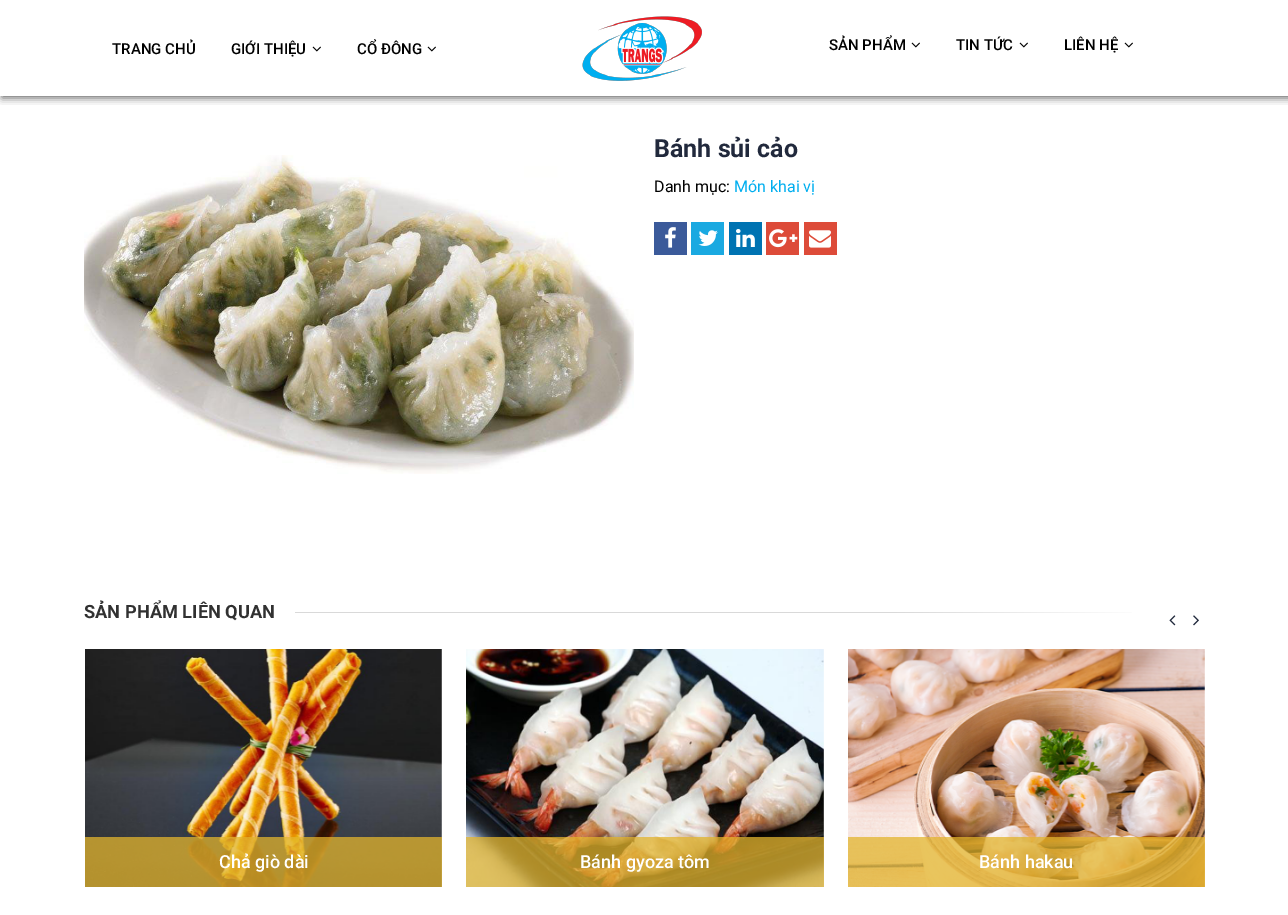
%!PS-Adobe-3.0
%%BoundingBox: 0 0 1288 915
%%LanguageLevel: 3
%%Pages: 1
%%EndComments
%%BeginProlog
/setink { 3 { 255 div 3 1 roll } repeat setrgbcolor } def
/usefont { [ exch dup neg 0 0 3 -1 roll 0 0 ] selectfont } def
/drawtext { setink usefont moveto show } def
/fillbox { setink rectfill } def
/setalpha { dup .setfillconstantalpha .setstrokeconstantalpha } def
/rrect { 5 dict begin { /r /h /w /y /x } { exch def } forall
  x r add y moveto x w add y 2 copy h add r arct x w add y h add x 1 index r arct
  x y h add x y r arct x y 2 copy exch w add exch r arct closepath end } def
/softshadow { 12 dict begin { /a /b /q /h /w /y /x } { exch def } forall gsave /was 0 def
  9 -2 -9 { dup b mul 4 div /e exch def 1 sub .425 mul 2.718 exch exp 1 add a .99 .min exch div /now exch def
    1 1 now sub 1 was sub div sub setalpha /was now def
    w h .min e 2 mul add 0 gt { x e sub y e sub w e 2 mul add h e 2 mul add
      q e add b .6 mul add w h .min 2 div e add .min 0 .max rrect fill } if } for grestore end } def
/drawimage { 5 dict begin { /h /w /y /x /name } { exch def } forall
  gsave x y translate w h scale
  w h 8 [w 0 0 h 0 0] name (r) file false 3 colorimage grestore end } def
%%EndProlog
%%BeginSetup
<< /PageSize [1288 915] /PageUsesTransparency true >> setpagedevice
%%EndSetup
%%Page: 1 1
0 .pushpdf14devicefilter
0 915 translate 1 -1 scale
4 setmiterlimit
0 0 1288 915 255 255 255 fillbox
gsave
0 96 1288 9 rectclip
0 0 0 setink
2 2 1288 96 0 4 0.6 softshadow
grestore
(TRANG CHỦ) 112 54 /Roboto-Medium 15 0 0 0 drawtext
(GIỚI THIỆU) 231 54 /Roboto-Medium 15 0 0 0 drawtext
(assets/img1.rgb) 312 46 9 6 drawimage
(CỔ ĐÔNG) 357 54 /Roboto-Medium 15 0 0 0 drawtext
(assets/img1.rgb) 427 46 9 6 drawimage
(assets/img2.rgb) 582 16 120 65 drawimage
(SẢN PHẨM) 829 50 /Roboto-Medium 15 0 0 0 drawtext
(assets/img1.rgb) 911 42 9 6 drawimage
(TIN TỨC) 956 50 /Roboto-Medium 15 0 0 0 drawtext
(assets/img1.rgb) 1019 42 9 6 drawimage
(LIÊN HỆ) 1064 50 /Roboto-Medium 15 0 0 0 drawtext
(assets/img1.rgb) 1124 42 9 6 drawimage
(assets/img3.rgb) 84 155 550 319 drawimage
(Bánh sủi cảo) 654 157 /Roboto-Bold 25 33 41 60 drawtext
(Danh mục:) 654 192 /Roboto-Regular 16 0 0 0 drawtext
(Món khai vị) 734 192 /Roboto-Regular 16 0 174 239 drawtext
654 222 33 33 59 90 154 fillbox
(assets/img4.rgb) 665 227 11 21 drawimage
691 222 33 33 26 169 225 fillbox
(assets/img5.rgb) 698 230 20 16 drawimage
729 222 33 33 0 115 178 fillbox
(assets/img6.rgb) 736 229 19 18 drawimage
766 222 33 33 221 75 57 fillbox
(assets/img7.rgb) 769 229 29 19 drawimage
804 222 33 33 221 75 57 fillbox
(assets/img8.rgb) 809 230 22 18 drawimage
(SẢN PHẨM LIÊN QUAN) 84 618 /Roboto-Bold 18.25 49 49 49 drawtext
gsave 295 612 moveto 1132 612 lineto 1132 613 lineto 295 613 lineto closepath clip newpath
<< /ShadingType 2 /ColorSpace /DeviceRGB /Coords [295 613 1149 613] /Extend [true true] /Function << /FunctionType 3 /Domain [0 1] /Functions [<< /FunctionType 2 /Domain [0 1] /C0 [0.851 0.851 0.851] /C1 [0.851 0.851 0.851] /N 1 >> << /FunctionType 2 /Domain [0 1] /C0 [0.851 0.851 0.851] /C1 [1 1 1] /N 1 >>] /Bounds [0.7] /Encode [0 1 0 1] >> >> shfill grestore
(assets/img9.rgb) 1169 615 7 11 drawimage
(assets/img10.rgb) 1193 615 6 11 drawimage
(assets/img11.rgb) 85 649 357 238 drawimage
0.75 setalpha
85 837 357 50 226 180 45 fillbox
1 setalpha
(Chả giò dài) 219 868 /Roboto-Medium 18 255 255 255 drawtext
(assets/img12.rgb) 466 649 358 238 drawimage
0.75 setalpha
466 837 358 50 226 180 45 fillbox
1 setalpha
(Bánh gyoza tôm) 580 868 /Roboto-Medium 18 255 255 255 drawtext
(assets/img13.rgb) 848 649 357 238 drawimage
0.75 setalpha
848 837 357 50 226 180 45 fillbox
1 setalpha
(Bánh hakau) 979 868 /Roboto-Medium 18 255 255 255 drawtext
.poppdf14devicefilter showpage
%%EOF
